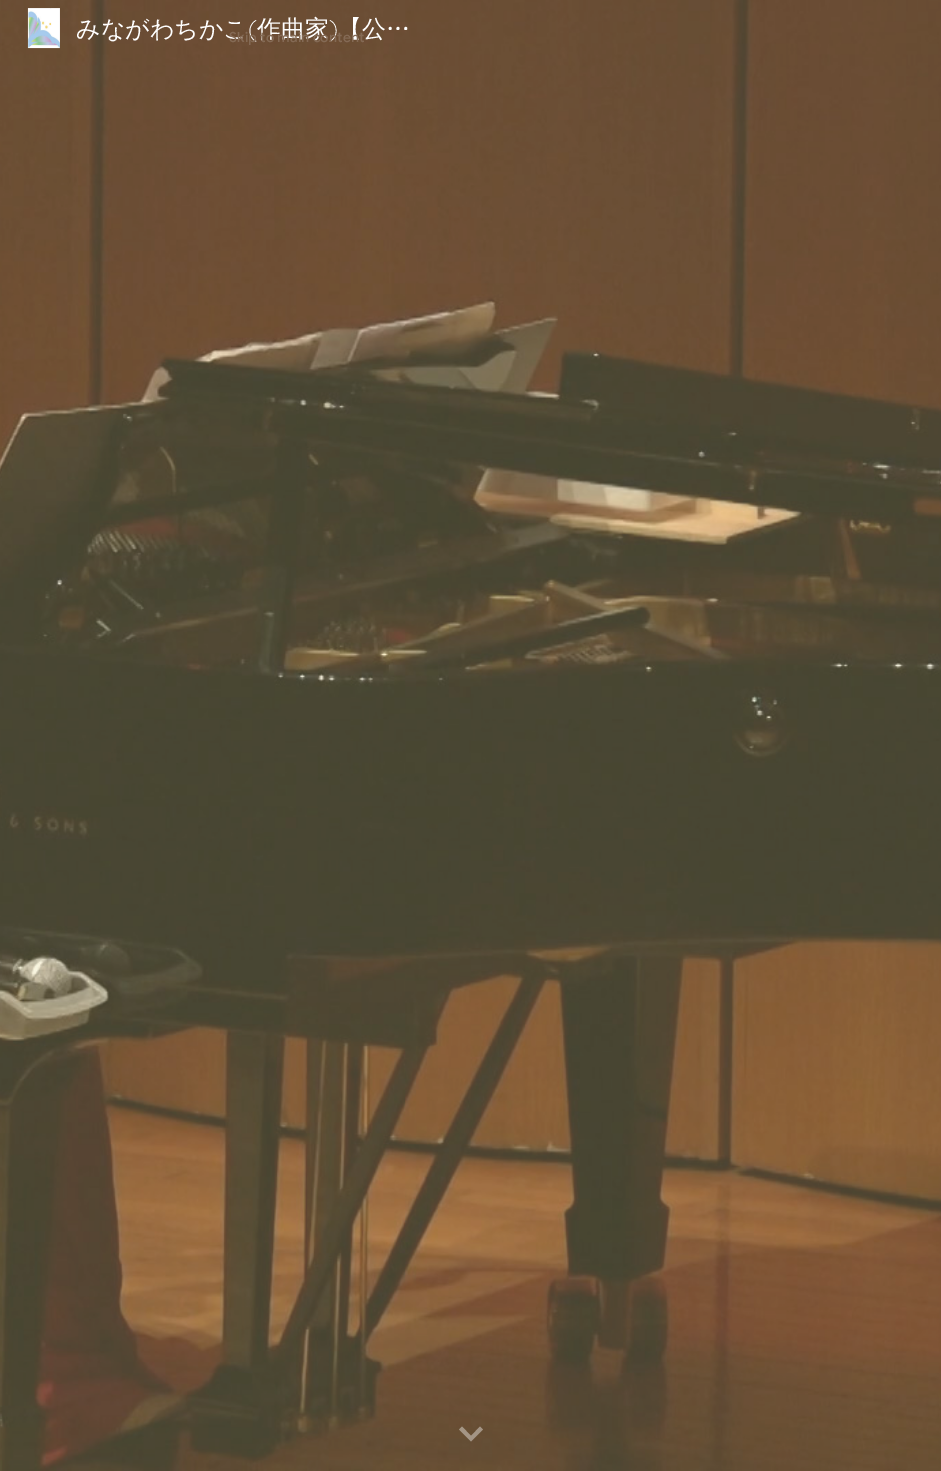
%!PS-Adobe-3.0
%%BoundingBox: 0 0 941 1471
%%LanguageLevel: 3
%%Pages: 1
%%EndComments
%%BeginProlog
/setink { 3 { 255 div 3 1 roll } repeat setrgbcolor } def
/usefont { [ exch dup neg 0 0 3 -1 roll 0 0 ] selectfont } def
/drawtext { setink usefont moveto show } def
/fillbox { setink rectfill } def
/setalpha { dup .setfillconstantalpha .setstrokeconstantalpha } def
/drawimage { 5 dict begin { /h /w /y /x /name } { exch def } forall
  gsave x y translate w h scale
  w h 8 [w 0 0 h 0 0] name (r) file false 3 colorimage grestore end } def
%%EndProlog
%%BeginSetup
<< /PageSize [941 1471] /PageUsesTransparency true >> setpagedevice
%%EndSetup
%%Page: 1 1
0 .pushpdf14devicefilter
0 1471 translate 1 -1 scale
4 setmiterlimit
0 0 941 1471 255 255 255 fillbox
(assets/img1.rgb) 0 0 941 1471 drawimage
0.4 setalpha
462 1426.5 moveto 471 1436 lineto 480 1426.5 lineto 483 1429.5 lineto 471 1441.5 lineto 459 1429.5 lineto closepath fill
1 setalpha
(assets/img2.rgb) 27 8 33 41 drawimage
(みながわちかこ) 76 37 /WenQuanYiZenHei-Medium 24 255 255 255 drawtext
(\() 248 37 /Quicksand-Light 24 255 255 255 drawtext
(作曲家) 257 37 /WenQuanYiZenHei-Medium 24 255 255 255 drawtext
(\)) 329 37 /Quicksand-Light 24 255 255 255 drawtext
(【公…) 338 37 /WenQuanYiZenHei-Medium 24 255 255 255 drawtext
/GoogleSans-Medium 14 usefont
132 106 85 setink
229 42 moveto 0.1 0 (Skip to main content) ashow
.poppdf14devicefilter showpage
%%EOF
